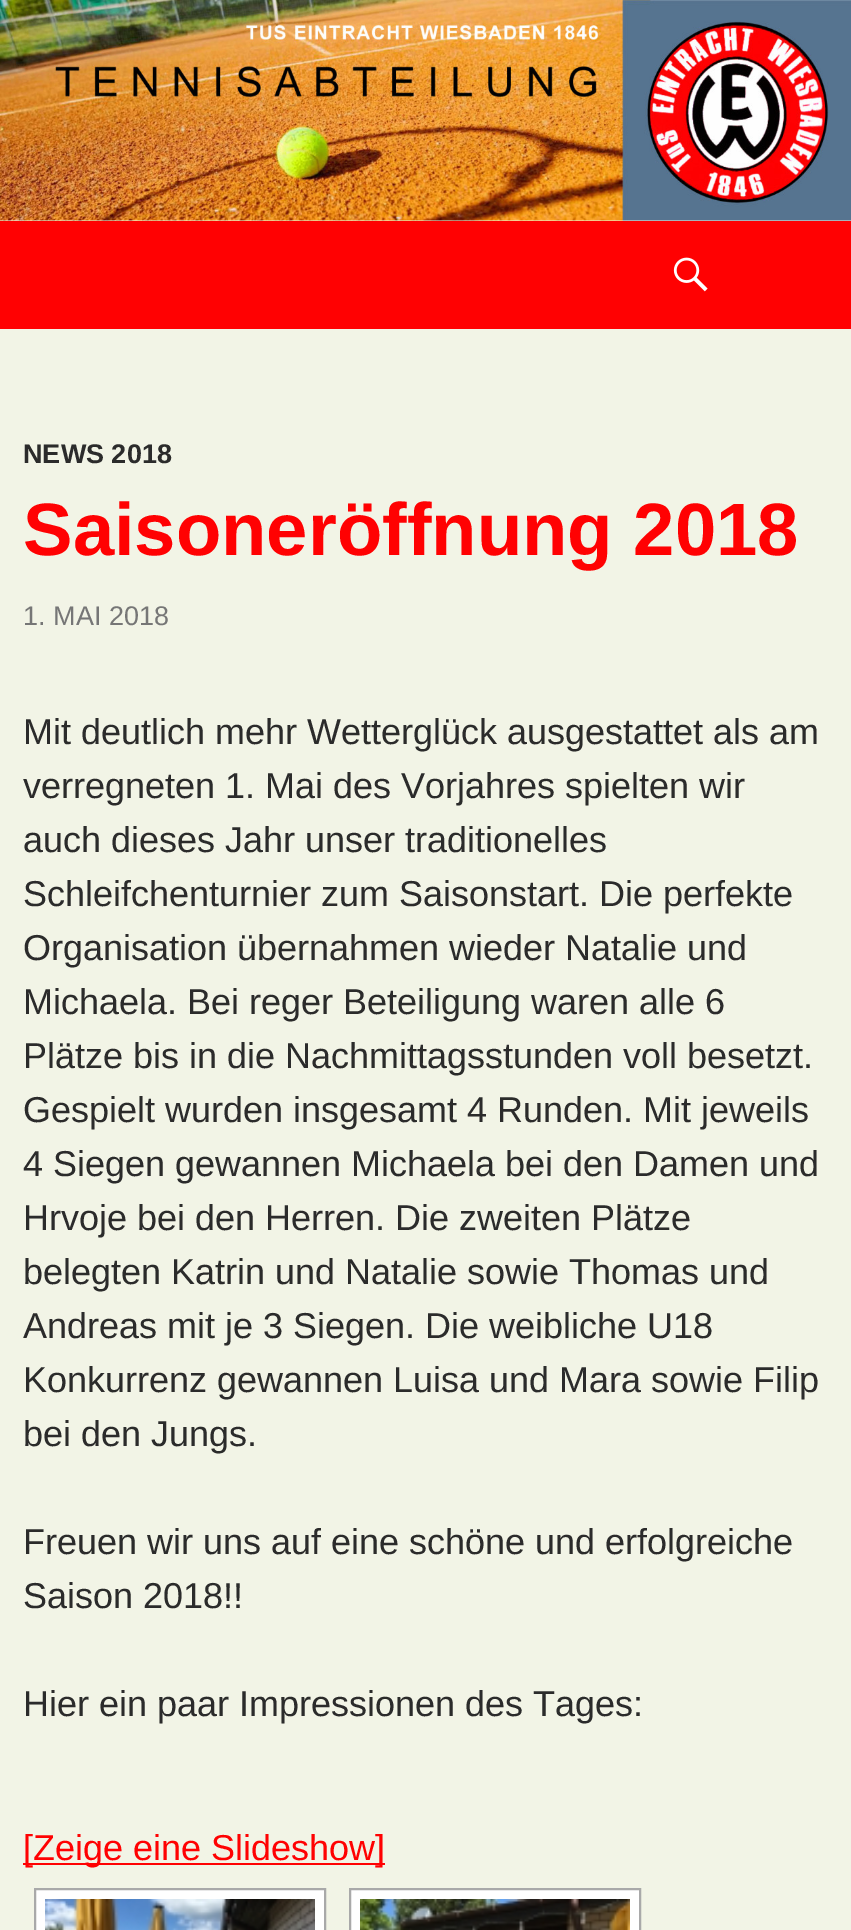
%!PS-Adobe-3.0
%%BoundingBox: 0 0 851 1930
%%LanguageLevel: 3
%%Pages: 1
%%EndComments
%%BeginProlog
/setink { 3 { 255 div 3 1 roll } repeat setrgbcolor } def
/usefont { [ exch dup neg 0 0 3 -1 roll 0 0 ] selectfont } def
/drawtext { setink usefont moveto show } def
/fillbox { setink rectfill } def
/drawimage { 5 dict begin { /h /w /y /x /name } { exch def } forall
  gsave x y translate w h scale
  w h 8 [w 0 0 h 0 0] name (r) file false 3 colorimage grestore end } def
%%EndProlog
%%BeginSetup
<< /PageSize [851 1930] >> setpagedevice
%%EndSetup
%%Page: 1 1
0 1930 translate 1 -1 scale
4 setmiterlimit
0 0 851 1930 242 244 230 fillbox
(assets/img1.rgb) 0 0 851 221 drawimage
0 221 851 108 255 1 2 fillbox
(assets/img2.rgb) 673 257 35 35 drawimage
(NEWS 2018) 23 463 /LiberationSans-Bold 27 43 43 43 drawtext
(Saisoneröffnung 2018) 23 555 /LiberationSans-Bold 74.25 255 1 2 drawtext
(1. MAI 2018) 23 625 /LiberationSans-Regular 27 118 118 118 drawtext
(Mit deutlich mehr Wetterglück ausgestattet als am) 23 744 /LiberationSans-Regular 36 43 43 43 drawtext
(verregneten 1. Mai des Vorjahres spielten wir) 23 798 /LiberationSans-Regular 36 43 43 43 drawtext
(auch dieses Jahr unser traditionelles) 23 852 /LiberationSans-Regular 36 43 43 43 drawtext
(Schleifchenturnier zum Saisonstart. Die perfekte) 23 906 /LiberationSans-Regular 36 43 43 43 drawtext
(Organisation übernahmen wieder Natalie und) 23 960 /LiberationSans-Regular 36 43 43 43 drawtext
(Michaela. Bei reger Beteiligung waren alle 6) 23 1014 /LiberationSans-Regular 36 43 43 43 drawtext
(Plätze bis in die Nachmittagsstunden voll besetzt.) 23 1068 /LiberationSans-Regular 36 43 43 43 drawtext
(Gespielt wurden insgesamt 4 Runden. Mit jeweils) 23 1122 /LiberationSans-Regular 36 43 43 43 drawtext
(4 Siegen gewannen Michaela bei den Damen und) 23 1176 /LiberationSans-Regular 36 43 43 43 drawtext
(Hrvoje bei den Herren. Die zweiten Plätze) 23 1230 /LiberationSans-Regular 36 43 43 43 drawtext
(belegten Katrin und Natalie sowie Thomas und) 23 1284 /LiberationSans-Regular 36 43 43 43 drawtext
(Andreas mit je 3 Siegen. Die weibliche U18) 23 1338 /LiberationSans-Regular 36 43 43 43 drawtext
(Konkurrenz gewannen Luisa und Mara sowie Filip) 23 1392 /LiberationSans-Regular 36 43 43 43 drawtext
(bei den Jungs.) 23 1446 /LiberationSans-Regular 36 43 43 43 drawtext
(Freuen wir uns auf eine schöne und erfolgreiche) 23 1554 /LiberationSans-Regular 36 43 43 43 drawtext
(Saison 2018!!) 23 1608 /LiberationSans-Regular 36 43 43 43 drawtext
(Hier ein paar Impressionen des Tages:) 23 1716 /LiberationSans-Regular 36 43 43 43 drawtext
23 1863 362 2 255 1 2 fillbox
([Zeige eine Slideshow]) 23 1860 /LiberationSans-Regular 36 255 1 2 drawtext
255 255 255 setink
35 1889 moveto 325 1889 lineto 325 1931 lineto 35 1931 lineto closepath gsave fill grestore
169 169 169 setink
2 setlinewidth
stroke
(assets/img3.rgb) 45 1899 270 31 drawimage
255 255 255 setink
350 1889 moveto 640 1889 lineto 640 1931 lineto 350 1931 lineto closepath gsave fill grestore
169 169 169 setink
stroke
(assets/img4.rgb) 360 1899 270 31 drawimage
showpage
%%EOF
